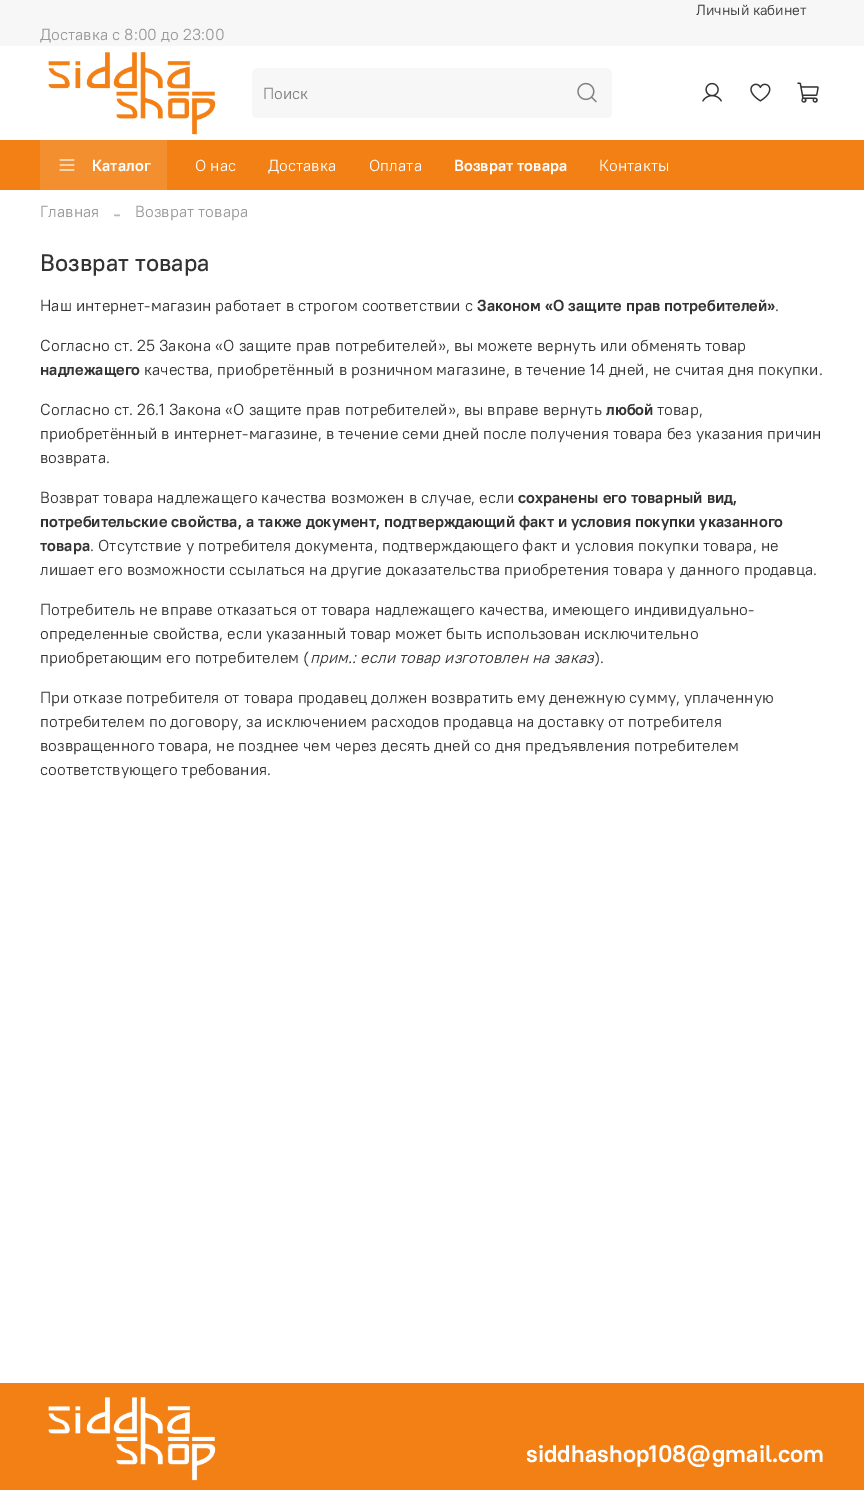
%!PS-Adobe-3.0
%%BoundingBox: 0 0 864 1490
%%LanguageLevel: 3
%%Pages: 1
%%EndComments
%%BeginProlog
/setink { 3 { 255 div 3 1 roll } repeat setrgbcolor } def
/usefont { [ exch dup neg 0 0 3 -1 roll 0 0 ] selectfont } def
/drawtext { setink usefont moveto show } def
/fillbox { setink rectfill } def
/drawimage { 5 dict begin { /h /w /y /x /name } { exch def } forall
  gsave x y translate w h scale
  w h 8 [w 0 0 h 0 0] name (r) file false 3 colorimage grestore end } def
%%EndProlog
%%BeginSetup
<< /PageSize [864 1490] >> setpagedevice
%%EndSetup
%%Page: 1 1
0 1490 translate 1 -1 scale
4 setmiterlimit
0 0 864 1490 255 255 255 fillbox
0 0 864 46 247 247 247 fillbox
(Личный кабинет) 696 15 /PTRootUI-Regular 14.5 51 51 51 drawtext
(Доставка с 8:00 до 23:00) 40 40 /PTRootUI-Regular 16 153 153 153 drawtext
(assets/img1.rgb) 48 52 168 83 drawimage
247 247 247 setink
258 68 moveto 562 68 lineto 562 118 lineto 258 118 lineto 254.5 118 252 115.5 252 112 curveto 252 74 lineto 252 70.5 254.5 68 258 68 curveto closepath fill
(Поиск) 263 99 /PTRootUI-Regular 16 128 128 128 drawtext
247 247 247 setink
562 68 moveto 606 68 lineto 609.5 68 612 70.5 612 74 curveto 612 112 lineto 612 115.5 609.5 118 606 118 curveto 562 118 lineto closepath fill
(assets/img2.rgb) 577 82 20 21 drawimage
(assets/img3.rgb) 702 82 20 20 drawimage
(assets/img4.rgb) 750 83 21 19 drawimage
(assets/img5.rgb) 797 82 22 21 drawimage
0 140 864 50 243 128 21 fillbox
40 140 127 50 244 143 48 fillbox
(assets/img6.rgb) 59 159 16 12 drawimage
(Каталог) 92 171 /PTRootUI-Bold 16 255 255 255 drawtext
(О нас) 195 171 /PTRootUI-Regular 16 255 255 255 drawtext
(Доставка) 268 171 /PTRootUI-Regular 16 255 255 255 drawtext
(Оплата) 369 171 /PTRootUI-Regular 16 255 255 255 drawtext
(Возврат товара) 454 171 /PTRootUI-Bold 16 255 255 255 drawtext
(Контакты) 599 171 /PTRootUI-Regular 16 255 255 255 drawtext
(Главная) 40 217 /PTRootUI-Regular 16 153 153 153 drawtext
(-) 113 221 /LiberationSerif-Regular 24 184 184 184 drawtext
(Возврат товара) 135 217 /PTRootUI-Regular 16 153 153 153 drawtext
(Возврат товара) 40 271 /PTRootUI-Medium 24 51 51 51 drawtext
(Наш интернет-магазин работает в строгом соответствии с) 40 311 /PTRootUI-Regular 16 51 51 51 drawtext
(Законом «О защите прав потребителей») 477 311 /PTRootUI-Bold 16 51 51 51 drawtext
(.) 775 311 /PTRootUI-Regular 16 51 51 51 drawtext
(Согласно ст. 25 Закона «О защите прав потребителей», вы можете вернуть или обменять товар) 40 351 /PTRootUI-Regular 16 51 51 51 drawtext
(надлежащего) 40 375 /PTRootUI-Bold 16 51 51 51 drawtext
(качества, приобретённый в розничном магазине, в течение 14 дней, не считая дня покупки.) 144 375 /PTRootUI-Regular 16 51 51 51 drawtext
(Согласно ст. 26.1 Закона «О защите прав потребителей», вы вправе вернуть) 40 415 /PTRootUI-Regular 16 51 51 51 drawtext
(любой) 606 415 /PTRootUI-Bold 16 51 51 51 drawtext
(товар,) 657 415 /PTRootUI-Regular 16 51 51 51 drawtext
(приобретённый в интернет-магазине, в течение семи дней после получения товара без указания причин) 40 439 /PTRootUI-Regular 16 51 51 51 drawtext
(возврата.) 40 463 /PTRootUI-Regular 16 51 51 51 drawtext
(Возврат товара надлежащего качества возможен в случае, если) 40 503 /PTRootUI-Regular 16 51 51 51 drawtext
(сохранены его товарный вид,) 518 503 /PTRootUI-Bold 16 51 51 51 drawtext
(потребительские свойства, а также документ, подтверждающий факт и условия покупки указанного) 40 527 /PTRootUI-Bold 16 51 51 51 drawtext
(товара) 40 551 /PTRootUI-Bold 16 51 51 51 drawtext
(. Отсутствие у потребителя документа, подтверждающего факт и условия покупки товара, не) 90 551 /PTRootUI-Regular 16 51 51 51 drawtext
(лишает его возможности ссылаться на другие доказательства приобретения товара у данного продавца.) 40 575 /PTRootUI-Regular 16 51 51 51 drawtext
(Потребитель не вправе отказаться от товара надлежащего качества, имеющего индивидуально-) 40 615 /PTRootUI-Regular 16 51 51 51 drawtext
(определенные свойства, если указанный товар может быть использован исключительно) 40 639 /PTRootUI-Regular 16 51 51 51 drawtext
(приобретающим его потребителем \() 40 663 /PTRootUI-Regular 16 51 51 51 drawtext
(прим.: если товар изготовлен на заказ) 310 663 /PTRootUI-Italic 16 51 51 51 drawtext
(\).) 594 663 /PTRootUI-Regular 16 51 51 51 drawtext
(При отказе потребителя от товара продавец должен возвратить ему денежную сумму, уплаченную) 40 703 /PTRootUI-Regular 16 51 51 51 drawtext
(потребителем по договору, за исключением расходов продавца на доставку от потребителя) 40 727 /PTRootUI-Regular 16 51 51 51 drawtext
(возвращенного товара, не позднее чем через десять дней со дня предъявления потребителем) 40 751 /PTRootUI-Regular 16 51 51 51 drawtext
(соответствующего требования.) 40 775 /PTRootUI-Regular 16 51 51 51 drawtext
0 1383 864 107 243 128 21 fillbox
(assets/img7.rgb) 48 1397 168 84 drawimage
(siddhashop108@gmail.com) 526 1462 /PTRootUI-Bold 24 255 255 255 drawtext
showpage
%%EOF
